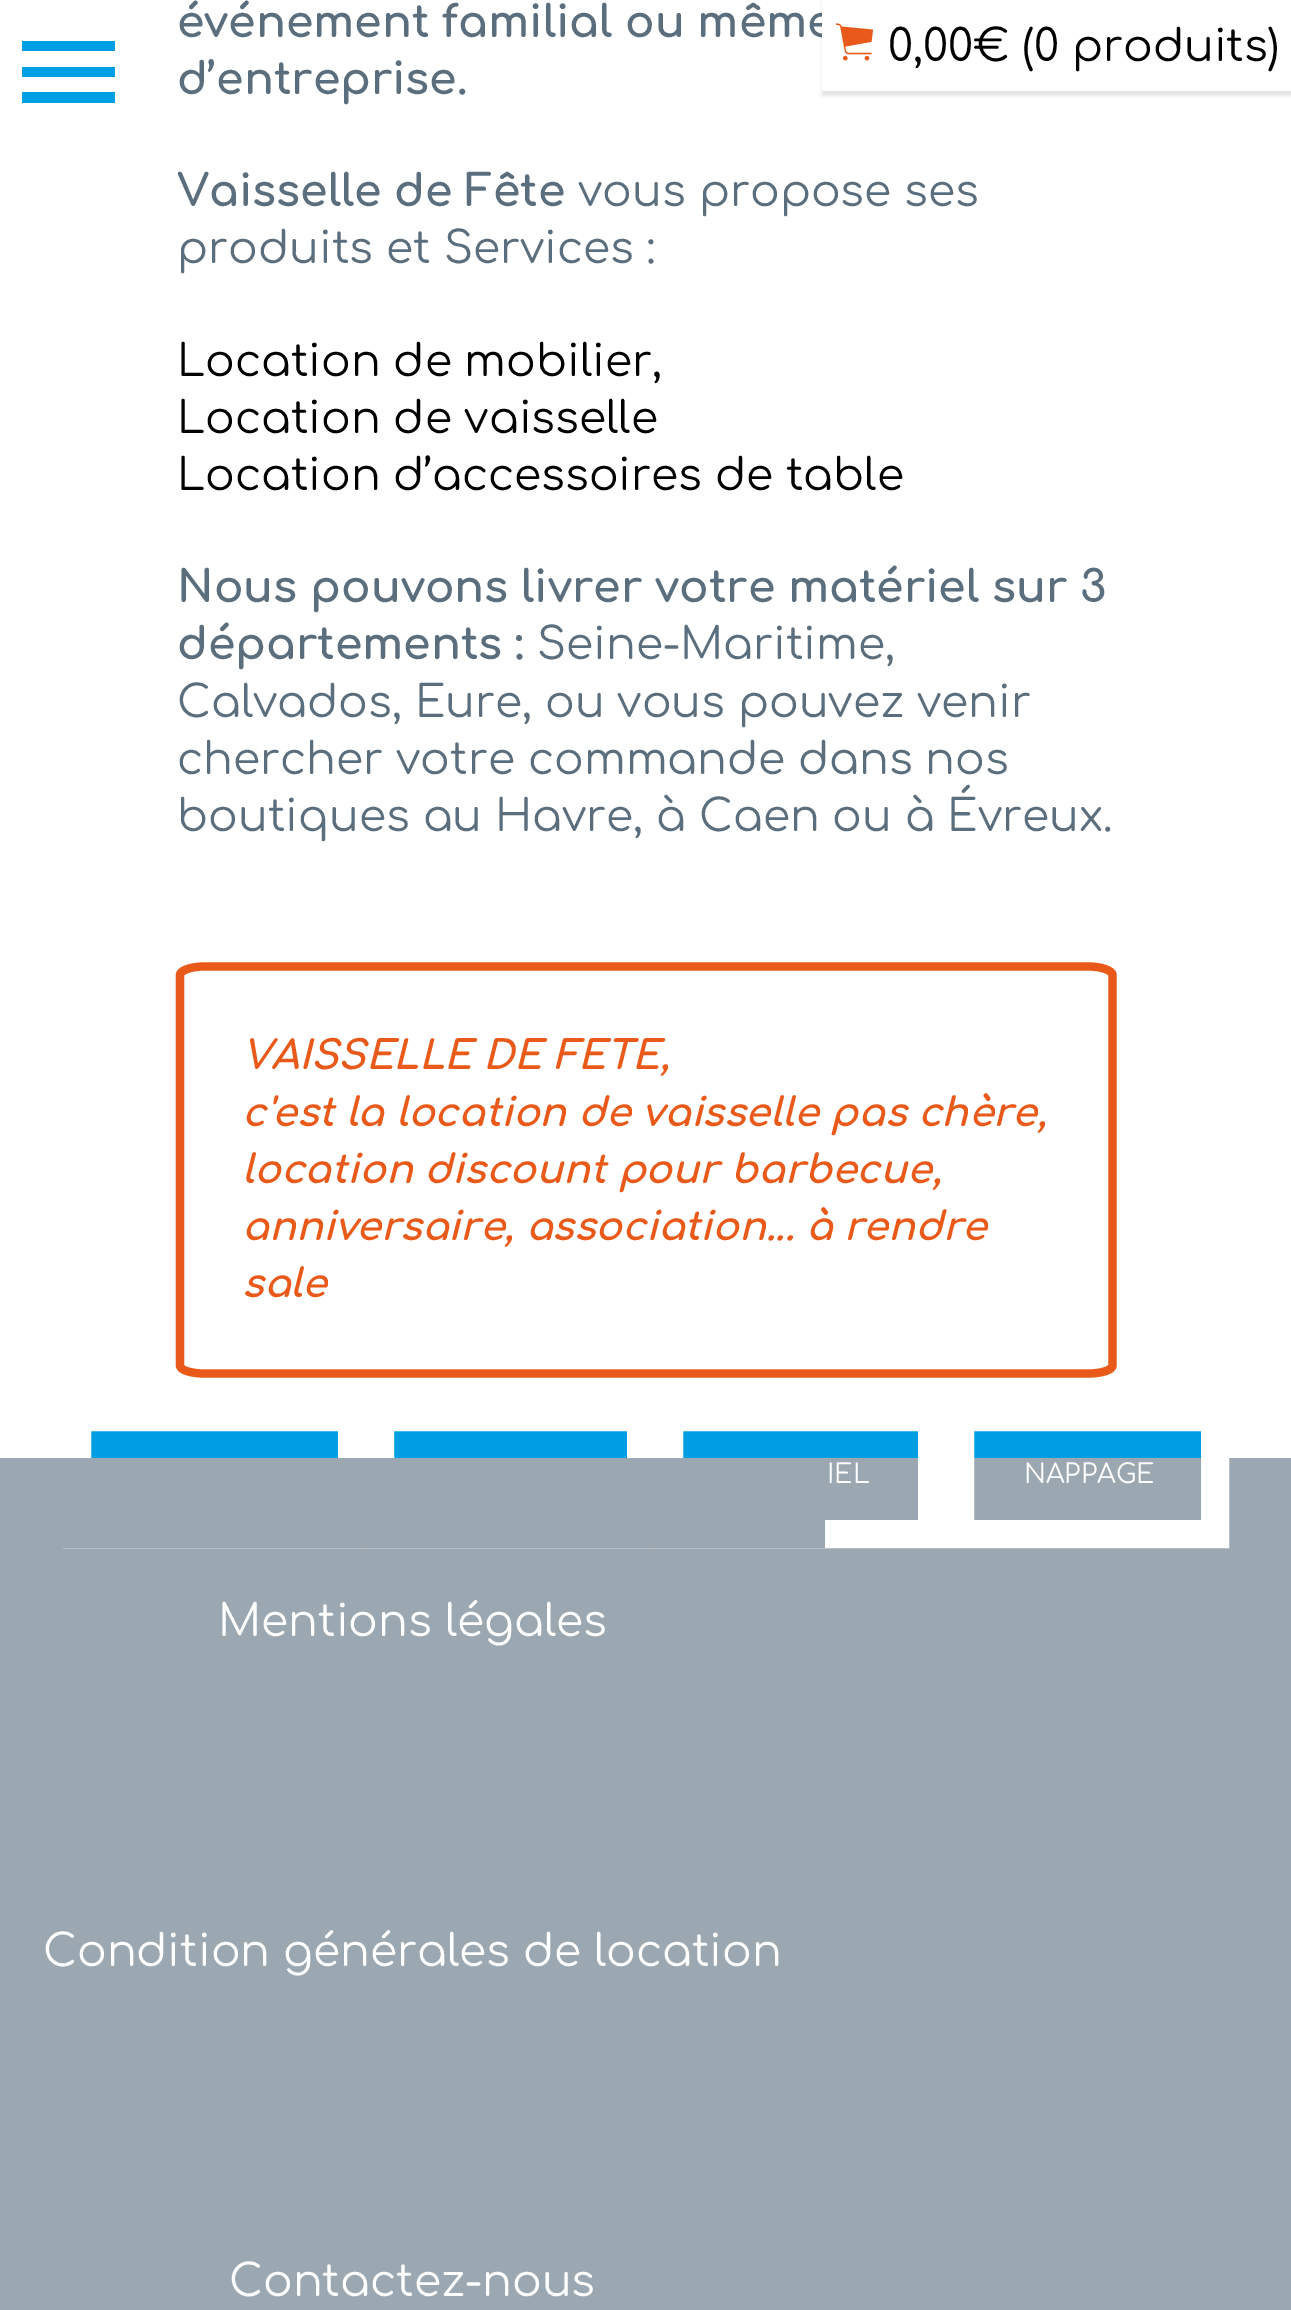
%!PS-Adobe-3.0
%%BoundingBox: 0 0 1291 2310
%%LanguageLevel: 3
%%Pages: 1
%%EndComments
%%BeginProlog
/setink { 3 { 255 div 3 1 roll } repeat setrgbcolor } def
/usefont { [ exch dup neg 0 0 3 -1 roll 0 0 ] selectfont } def
/drawtext { setink usefont moveto show } def
/fillbox { setink rectfill } def
/setalpha { dup .setfillconstantalpha .setstrokeconstantalpha } def
/rrect { 5 dict begin { /r /h /w /y /x } { exch def } forall
  x r add y moveto x w add y 2 copy h add r arct x w add y h add x 1 index r arct
  x y h add x y r arct x y 2 copy exch w add exch r arct closepath end } def
/softshadow { 12 dict begin { /a /b /q /h /w /y /x } { exch def } forall gsave /was 0 def
  9 -2 -9 { dup b mul 4 div /e exch def 1 sub .425 mul 2.718 exch exp 1 add a .99 .min exch div /now exch def
    1 1 now sub 1 was sub div sub setalpha /was now def
    w h .min e 2 mul add 0 gt { x e sub y e sub w e 2 mul add h e 2 mul add
      q e add b .6 mul add w h .min 2 div e add .min 0 .max rrect fill } if } for grestore end } def
/drawimage { 5 dict begin { /h /w /y /x /name } { exch def } forall
  gsave x y translate w h scale
  w h 8 [w 0 0 h 0 0] name (r) file false 3 colorimage grestore end } def
%%EndProlog
%%BeginSetup
<< /PageSize [1291 2310] /PageUsesTransparency true >> setpagedevice
%%EndSetup
%%Page: 1 1
0 .pushpdf14devicefilter
0 2310 translate 1 -1 scale
4 setmiterlimit
0 0 1291 2310 255 255 255 fillbox
(événement familial ou même) 177 37 /Comfortaa-Bold 44 90 110 125 drawtext
(d’entreprise.) 177 94 /Comfortaa-Bold 44 90 110 125 drawtext
(Vaisselle de Fête) 177 206 /Comfortaa-Bold 44 90 110 125 drawtext
(vous propose ses) 578 206 /Comfortaa-Regular 44 90 110 125 drawtext
(produits et Services :) 177 263 /Comfortaa-Regular 44 90 110 125 drawtext
(Location de mobilier,) 177 376 /Comfortaa-Regular 44 0 0 0 drawtext
(Location de vaisselle) 177 433 /Comfortaa-Regular 44 0 0 0 drawtext
(Location d’accessoires de table) 177 490 /Comfortaa-Regular 44 0 0 0 drawtext
(Nous pouvons livrer votre matériel sur 3) 177 602 /Comfortaa-Bold 44 90 110 125 drawtext
(départements :) 177 659 /Comfortaa-Bold 44 90 110 125 drawtext
(Seine-Maritime,) 537 659 /Comfortaa-Regular 44 90 110 125 drawtext
(Calvados, Eure, ou vous pouvez venir) 177 717 /Comfortaa-Regular 44 90 110 125 drawtext
(chercher votre commande dans nos) 177 774 /Comfortaa-Regular 44 90 110 125 drawtext
(boutiques au Havre, à Caen ou à Évreux.) 177 831 /Comfortaa-Regular 44 90 110 125 drawtext
233 90 26 setink
8.2 setlinewidth
204 966.5 moveto 1088.5 966.5 lineto 1101.5 966.5 1112.5 970.5 1112.5 975 curveto 1112.5 1365.5 lineto 1112.5 1370 1101.5 1373.5 1088.5 1373.5 curveto 204 1373.5 lineto 191 1373.5 180 1370 180 1365.5 curveto 180 975 lineto 180 970.5 191 966.5 204 966.5 curveto closepath stroke
(VAISSELLE DE FETE,) 242 1069 /Comfortaa-BoldItalic 39.6 233 90 26 drawtext
(c'est la location de vaisselle pas chère,) 242 1126 /Comfortaa-BoldItalic 39.6 233 90 26 drawtext
(location discount pour barbecue,) 242 1183 /Comfortaa-BoldItalic 39.6 233 90 26 drawtext
(anniversaire, association... à rendre) 242 1240 /Comfortaa-BoldItalic 39.6 233 90 26 drawtext
(sale) 242 1297 /Comfortaa-BoldItalic 39.6 233 90 26 drawtext
91 1431 247 27 0 158 226 fillbox
0 1458 1291 852 156 168 177 fillbox
255 255 255 setink
28 setlinewidth
77 1417 275 117 rectstroke
394 1431 233 27 0 158 226 fillbox
255 255 255 setink
380 1417 261 117 rectstroke
683 1431 235 27 0 158 226 fillbox
255 255 255 setink
669 1417 263 117 rectstroke
(IEL) 827 1483 /Comfortaa-Regular 26.5 255 255 255 drawtext
974 1431 227 27 0 158 226 fillbox
255 255 255 setink
960 1417 255 117 rectstroke
(NAPPAGE) 1024 1483 /Comfortaa-Regular 26.5 255 255 255 drawtext
63 1458 762 90 156 168 177 fillbox
(Mentions légales) 218 1636 /Comfortaa-Regular 44 255 255 255 drawtext
(Condition générales de location) 43 1966 /Comfortaa-Regular 44 255 255 255 drawtext
(Contactez-nous) 229 2296 /Comfortaa-Regular 44 255 255 255 drawtext
0 158 226 setink
22 103 moveto 22 92 lineto 115 92 lineto 115 103 lineto closepath 22 77 moveto 22 67 lineto 115 67 lineto 115 77 lineto closepath 22 41 moveto 115 41 lineto 115 51 lineto 22 51 lineto closepath fill
0 0 0 setink
822 0 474 96 0 1.5 0.1 softshadow
822 0 469 91 255 255 255 fillbox
(assets/img1.rgb) 836 23 38 38 drawimage
(0,00€ \(0 produits\)) 888 61 /Comfortaa-Regular 44 0 0 0 drawtext
.poppdf14devicefilter showpage
%%EOF
